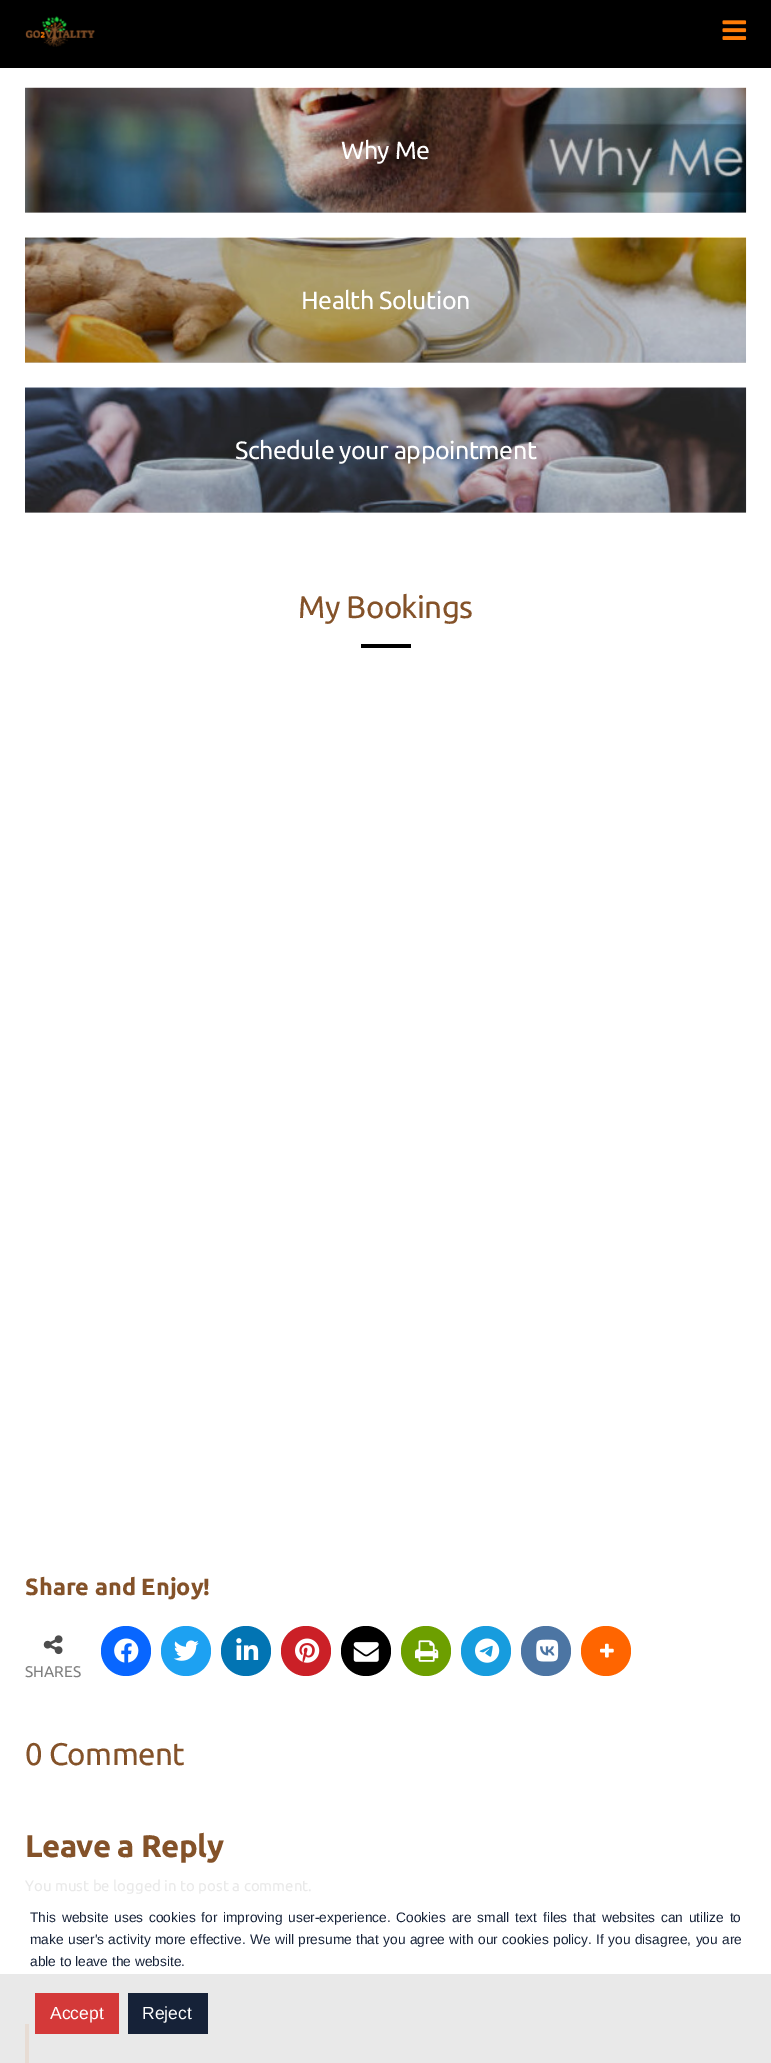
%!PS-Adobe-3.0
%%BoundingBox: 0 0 771 2063
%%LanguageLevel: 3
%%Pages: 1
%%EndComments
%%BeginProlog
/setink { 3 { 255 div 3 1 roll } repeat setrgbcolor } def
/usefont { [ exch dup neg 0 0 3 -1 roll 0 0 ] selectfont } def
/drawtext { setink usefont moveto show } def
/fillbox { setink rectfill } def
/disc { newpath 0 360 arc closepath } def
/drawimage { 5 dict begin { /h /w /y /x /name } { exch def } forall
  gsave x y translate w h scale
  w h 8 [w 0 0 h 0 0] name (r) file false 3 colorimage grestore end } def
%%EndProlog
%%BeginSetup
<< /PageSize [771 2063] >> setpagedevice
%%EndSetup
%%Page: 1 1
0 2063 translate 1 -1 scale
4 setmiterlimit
0 0 771 2063 255 255 255 fillbox
25 512 721 1 204 204 204 fillbox
25 362 721 1 204 204 204 fillbox
25 212 721 1 204 204 204 fillbox
0 0 771 68 0 0 0 fillbox
(assets/img1.rgb) 25 16 70 31 drawimage
(assets/img2.rgb) 722 20 25 20 drawimage
(assets/img3.rgb) 25 87 722 126 drawimage
/Ubuntu-Regular 25 usefont
255 255 255 setink
341 159 moveto -0.5 0 (Why Me) ashow
(assets/img4.rgb) 25 237 722 126 drawimage
301 309 moveto -0.5 0 (Health Solution) ashow
(assets/img5.rgb) 25 387 722 126 drawimage
235 459 moveto -0.5 0 (Schedule your appointment) ashow
/Ubuntu-Regular 31.25 usefont
132 82 41 setink
298 618 moveto -0.6 0 (My Bookings) ashow
361 644 50 4 0 0 0 fillbox
(Share and Enjoy!) 25 1595 /Ubuntu-Bold 23.5 132 82 41 drawtext
(assets/img6.rgb) 43 1635 20 20 drawimage
(SHARES) 25 1677 /Ubuntu-Regular 15.5 128 128 128 drawtext
8 102 255 setink
126 1651 25 disc fill
(assets/img7.rgb) 114 1638 25 25 drawimage
29 161 242 setink
186 1651 25 disc fill
(assets/img8.rgb) 173 1640 26 21 drawimage
2 116 179 setink
246 1651 25 disc fill
(assets/img9.rgb) 236 1638 23 22 drawimage
203 32 39 setink
306 1651 25 disc fill
(assets/img10.rgb) 295 1638 25 25 drawimage
0 0 0 setink
366 1651 25 disc fill
(assets/img11.rgb) 353 1642 26 20 drawimage
109 159 0 setink
426 1651 25 disc fill
(assets/img12.rgb) 415 1640 24 22 drawimage
23 156 222 setink
486 1651 25 disc fill
(assets/img13.rgb) 475 1638 25 25 drawimage
76 117 163 setink
546 1651 25 disc fill
(assets/img14.rgb) 536 1639 23 23 drawimage
255 101 0 setink
606 1651 25 disc fill
(assets/img15.rgb) 600 1643 14 15 drawimage
/Ubuntu-Regular 31.25 usefont
132 82 41 setink
25 1765 moveto -0.6 0 (0 Comment) ashow
/Ubuntu-Bold 31.25 usefont
25 1857 moveto -0.6 0 (Leave a Reply) ashow
(You must be logged in to post a comment.) 25 1891 /Ubuntu-Regular 15 233 233 233 drawtext
0 1974 771 89 233 233 233 fillbox
25 2024 4 39 231 220 212 fillbox
/LiberationSans-Regular 13.75 usefont
22 34 56 setink
30 1922 moveto 1.9 0 32 (This website uses cookies for improving user-experience. Cookies are small text files that websites can utilize to) widthshow
30 1944 moveto 0.5 0 32 (make user's activity more effective. We will presume that you agree with our cookies policy. If you disagree, you are) widthshow
(able to leave the website.) 30 1966 /LiberationSans-Regular 13.75 22 34 56 drawtext
35 1993 84 41 212 57 57 fillbox
(Accept) 50 2019 /LiberationSans-Regular 17.5 255 255 255 drawtext
128 1993 80 41 22 34 56 fillbox
(Reject) 142 2019 /LiberationSans-Regular 17.5 255 255 255 drawtext
showpage
%%EOF
